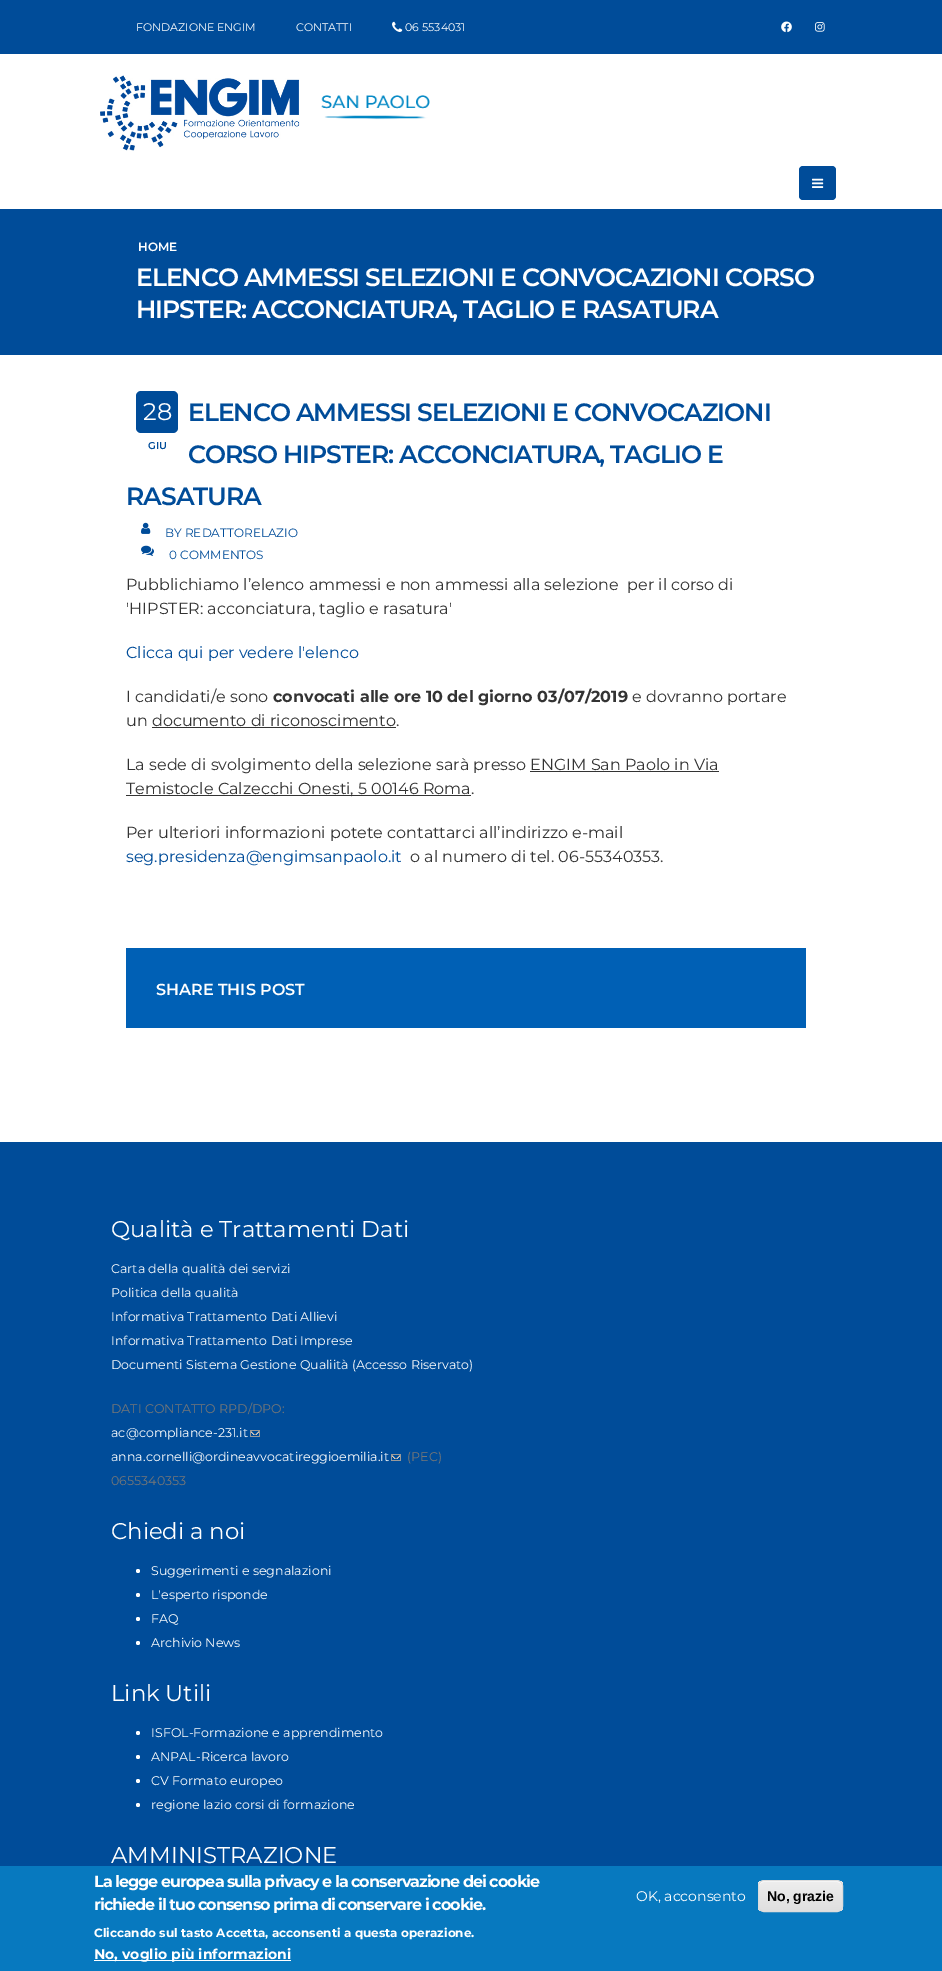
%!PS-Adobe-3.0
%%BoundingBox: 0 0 942 1971
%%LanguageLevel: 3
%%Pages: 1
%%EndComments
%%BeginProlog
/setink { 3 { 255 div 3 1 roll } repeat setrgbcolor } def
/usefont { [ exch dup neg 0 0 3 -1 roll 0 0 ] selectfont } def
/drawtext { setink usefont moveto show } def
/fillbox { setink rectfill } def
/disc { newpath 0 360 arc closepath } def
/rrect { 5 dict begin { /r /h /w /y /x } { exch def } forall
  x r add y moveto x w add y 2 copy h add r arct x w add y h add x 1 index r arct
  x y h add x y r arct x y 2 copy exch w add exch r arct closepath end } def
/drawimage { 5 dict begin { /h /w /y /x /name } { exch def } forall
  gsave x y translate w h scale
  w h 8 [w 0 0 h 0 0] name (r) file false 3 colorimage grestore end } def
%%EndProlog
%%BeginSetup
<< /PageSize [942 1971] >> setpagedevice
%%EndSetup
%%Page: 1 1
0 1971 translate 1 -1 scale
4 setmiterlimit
0 0 942 1971 255 255 255 fillbox
0 0 942 54 0 76 153 fillbox
(FONDAZIONE ENGIM) 136 31 /Montserrat-Regular 11 255 255 255 drawtext
(CONTATTI) 296 31 /Montserrat-Regular 11 255 255 255 drawtext
(assets/img1.rgb) 392 21 11 11 drawimage
(06 5534031) 405 31 /Montserrat-Regular 11 255 255 255 drawtext
(assets/img2.rgb) 781 21 11 12 drawimage
(assets/img3.rgb) 815 22 10 10 drawimage
(assets/img4.rgb) 100 75 200 76 drawimage
(assets/img5.rgb) 321 91 109 29 drawimage
0 76 153 setink
799 166 37 34 4 rrect fill
(assets/img6.rgb) 812 178 12 10 drawimage
0 209 942 146 0 76 153 fillbox
(HOME) 138 251 /Montserrat-SemiBold 12 255 255 255 drawtext
/Montserrat-SemiBold 25 usefont
136 286 moveto -1 0 (ELENCO AMMESSI SELEZIONI E CONVOCAZIONI CORSO) ashow
136 318 moveto -1 0 (HIPSTER: ACCONCIATURA, TAGLIO E RASATURA) ashow
0 76 153 setink
188 421 moveto -1 0 (ELENCO AMMESSI SELEZIONI E CONVOCAZIONI) ashow
188 463 moveto -1 0 (CORSO HIPSTER: ACCONCIATURA, TAGLIO E) ashow
126 505 moveto -1 0 (RASATURA) ashow
(assets/img7.rgb) 141 522 10 12 drawimage
(BY REDATTORELAZIO) 165 537 /Montserrat-Regular 12 0 76 153 drawtext
(assets/img8.rgb) 141 545 13 11 drawimage
(0 COMMENTOS) 169 559 /Montserrat-Regular 12 0 76 153 drawtext
(Pubblichiamo l’elenco ammessi e non ammessi alla selezione  per il corso di) 126 590 /Montserrat-Regular 16 51 51 51 drawtext
('HIPSTER: acconciatura, taglio e rasatura') 126 614 /Montserrat-Regular 16 51 51 51 drawtext
(Clicca qui per vedere l'elenco) 126 658 /Montserrat-Regular 16 0 76 153 drawtext
(I candidati/e sono) 126 702 /Montserrat-Regular 16 51 51 51 drawtext
(convocati alle ore 10 del giorno 03/07/2019) 273 702 /Montserrat-Bold 16 51 51 51 drawtext
(e dovranno portare) 632 702 /Montserrat-Regular 16 51 51 51 drawtext
(un documento di riconoscimento.) 126 726 /Montserrat-Regular 16 51 51 51 drawtext
152 727 244 1 51 51 51 fillbox
(La sede di svolgimento della selezione sarà presso ENGIM San Paolo in Via) 126 770 /Montserrat-Regular 16 51 51 51 drawtext
126 795 345 1 51 51 51 fillbox
(Temistocle Calzecchi Onesti, 5 00146 Roma.) 126 794 /Montserrat-Regular 16 51 51 51 drawtext
530 771 189 1 51 51 51 fillbox
(Per ulteriori informazioni potete contattarci all’indirizzo e-mail) 126 838 /Montserrat-Regular 16 51 51 51 drawtext
(seg.presidenza@engimsanpaolo.it) 126 862 /Montserrat-Regular 16 0 76 153 drawtext
(o al numero di tel. 06-55340353.) 410 862 /Montserrat-Regular 16 51 51 51 drawtext
126 948 680 80 0 96 181 fillbox
(SHARE THIS POST) 156 995 /Montserrat-SemiBold 16 255 255 255 drawtext
0 76 153 setink
136 391 42 42 5 rrect fill
(28) 143 420 /Montserrat-Regular 24 255 255 255 drawtext
(GIU) 148 449 /Montserrat-SemiBold 10 0 76 153 drawtext
0 1142 942 724 0 76 153 fillbox
(Qualità e Trattamenti Dati) 111 1237 /Montserrat-Regular 22.75 255 255 255 drawtext
(Carta della qualità dei servizi) 111 1273 /Montserrat-Regular 12.6 255 255 255 drawtext
(Politica della qualità) 111 1297 /Montserrat-Regular 12.6 255 255 255 drawtext
(Informativa Trattamento Dati Allievi) 111 1321 /Montserrat-Regular 12.6 255 255 255 drawtext
(Informativa Trattamento Dati Imprese) 111 1345 /Montserrat-Regular 12.6 255 255 255 drawtext
(Documenti Sistema Gestione Qualiità \(Accesso Riservato\)) 111 1369 /Montserrat-Regular 12.6 255 255 255 drawtext
(DATI CONTATTO RPD/DPO:) 111 1413 /Montserrat-Regular 12.6 119 119 119 drawtext
(ac@compliance-231.it) 111 1437 /Montserrat-Regular 12.6 255 255 255 drawtext
(assets/img9.rgb) 250 1430 10 7 drawimage
(anna.cornelli@ordineavvocatireggioemilia.it) 111 1461 /Montserrat-Regular 12.6 255 255 255 drawtext
(assets/img9.rgb) 391 1454 10 7 drawimage
(\(PEC\)) 407 1461 /Montserrat-Regular 12.6 119 119 119 drawtext
(0655340353) 111 1485 /Montserrat-Regular 12.6 119 119 119 drawtext
(Chiedi a noi) 111 1539 /Montserrat-Regular 22.75 255 255 255 drawtext
138 1571 2 disc fill
(Suggerimenti e segnalazioni) 151 1575 /Montserrat-Regular 12.6 255 255 255 drawtext
138 1595 2 disc fill
(L'esperto risponde) 151 1599 /Montserrat-Regular 12.6 255 255 255 drawtext
138 1619 2 disc fill
(FAQ) 151 1623 /Montserrat-Regular 12.6 255 255 255 drawtext
138 1643 2 disc fill
(Archivio News) 151 1647 /Montserrat-Regular 12.6 255 255 255 drawtext
(Link Utili) 111 1701 /Montserrat-Regular 22.75 255 255 255 drawtext
138 1733 2 disc fill
(ISFOL-Formazione e apprendimento) 151 1737 /Montserrat-Regular 12.6 255 255 255 drawtext
138 1757 2 disc fill
(ANPAL-Ricerca lavoro) 151 1761 /Montserrat-Regular 12.6 255 255 255 drawtext
138 1781 2 disc fill
(CV Formato europeo) 151 1785 /Montserrat-Regular 12.6 255 255 255 drawtext
138 1805 2 disc fill
(regione lazio corsi di formazione) 151 1809 /Montserrat-Regular 12.6 255 255 255 drawtext
(AMMINISTRAZIONE) 111 1863 /Montserrat-Regular 22.75 255 255 255 drawtext
0 1866 942 105 7 121 191 fillbox
/Montserrat-Bold 16 usefont
255 255 255 setink
94 1887 moveto -1 0 (La legge europea sulla privacy e la conservazione dei cookie) ashow
94 1910 moveto -1 0 (richiede il tuo consenso prima di conservare i cookie.) ashow
(Cliccando sul tasto Accetta, acconsenti a questa operazione.) 94 1937 /Montserrat-Bold 12 255 255 255 drawtext
94 1960 197 1 255 255 255 fillbox
(No, voglio più informazioni) 94 1959 /Montserrat-Bold 14 255 255 255 drawtext
(OK, acconsento) 636 1901 /Montserrat-Regular 14 255 255 255 drawtext
gsave
758 1880 85 32 6 rrect clip newpath
gsave 758 1881 moveto 843 1881 lineto 843 1911 lineto 758 1911 lineto closepath clip newpath
<< /ShadingType 2 /ColorSpace /DeviceRGB /Coords [801 1881 801 1911] /Extend [true true] /Function << /FunctionType 3 /Domain [0 1] /Functions [<< /FunctionType 2 /Domain [0 1] /C0 [0.929 0.929 0.929] /C1 [0.929 0.929 0.929] /N 1 >> << /FunctionType 2 /Domain [0 1] /C0 [0.929 0.929 0.929] /C1 [0.875 0.875 0.875] /N 1 >>] /Bounds [0.05] /Encode [0 1 0 1] >> >> shfill grestore
grestore
764 1882 moveto 837 1882 lineto 840 1882 842 1884 842 1887 curveto 842 1878 831 1881 825 1881 curveto 776 1881 lineto 770 1881 759 1878 759 1887 curveto 759 1884 761 1882 764 1882 curveto closepath fill
220 220 220 setink
758.5 1880.5 84 31 5.5 rrect stroke
(No, grazie) 767 1901 /LiberationSans-Bold 14 0 0 0 drawtext
showpage
%%EOF
